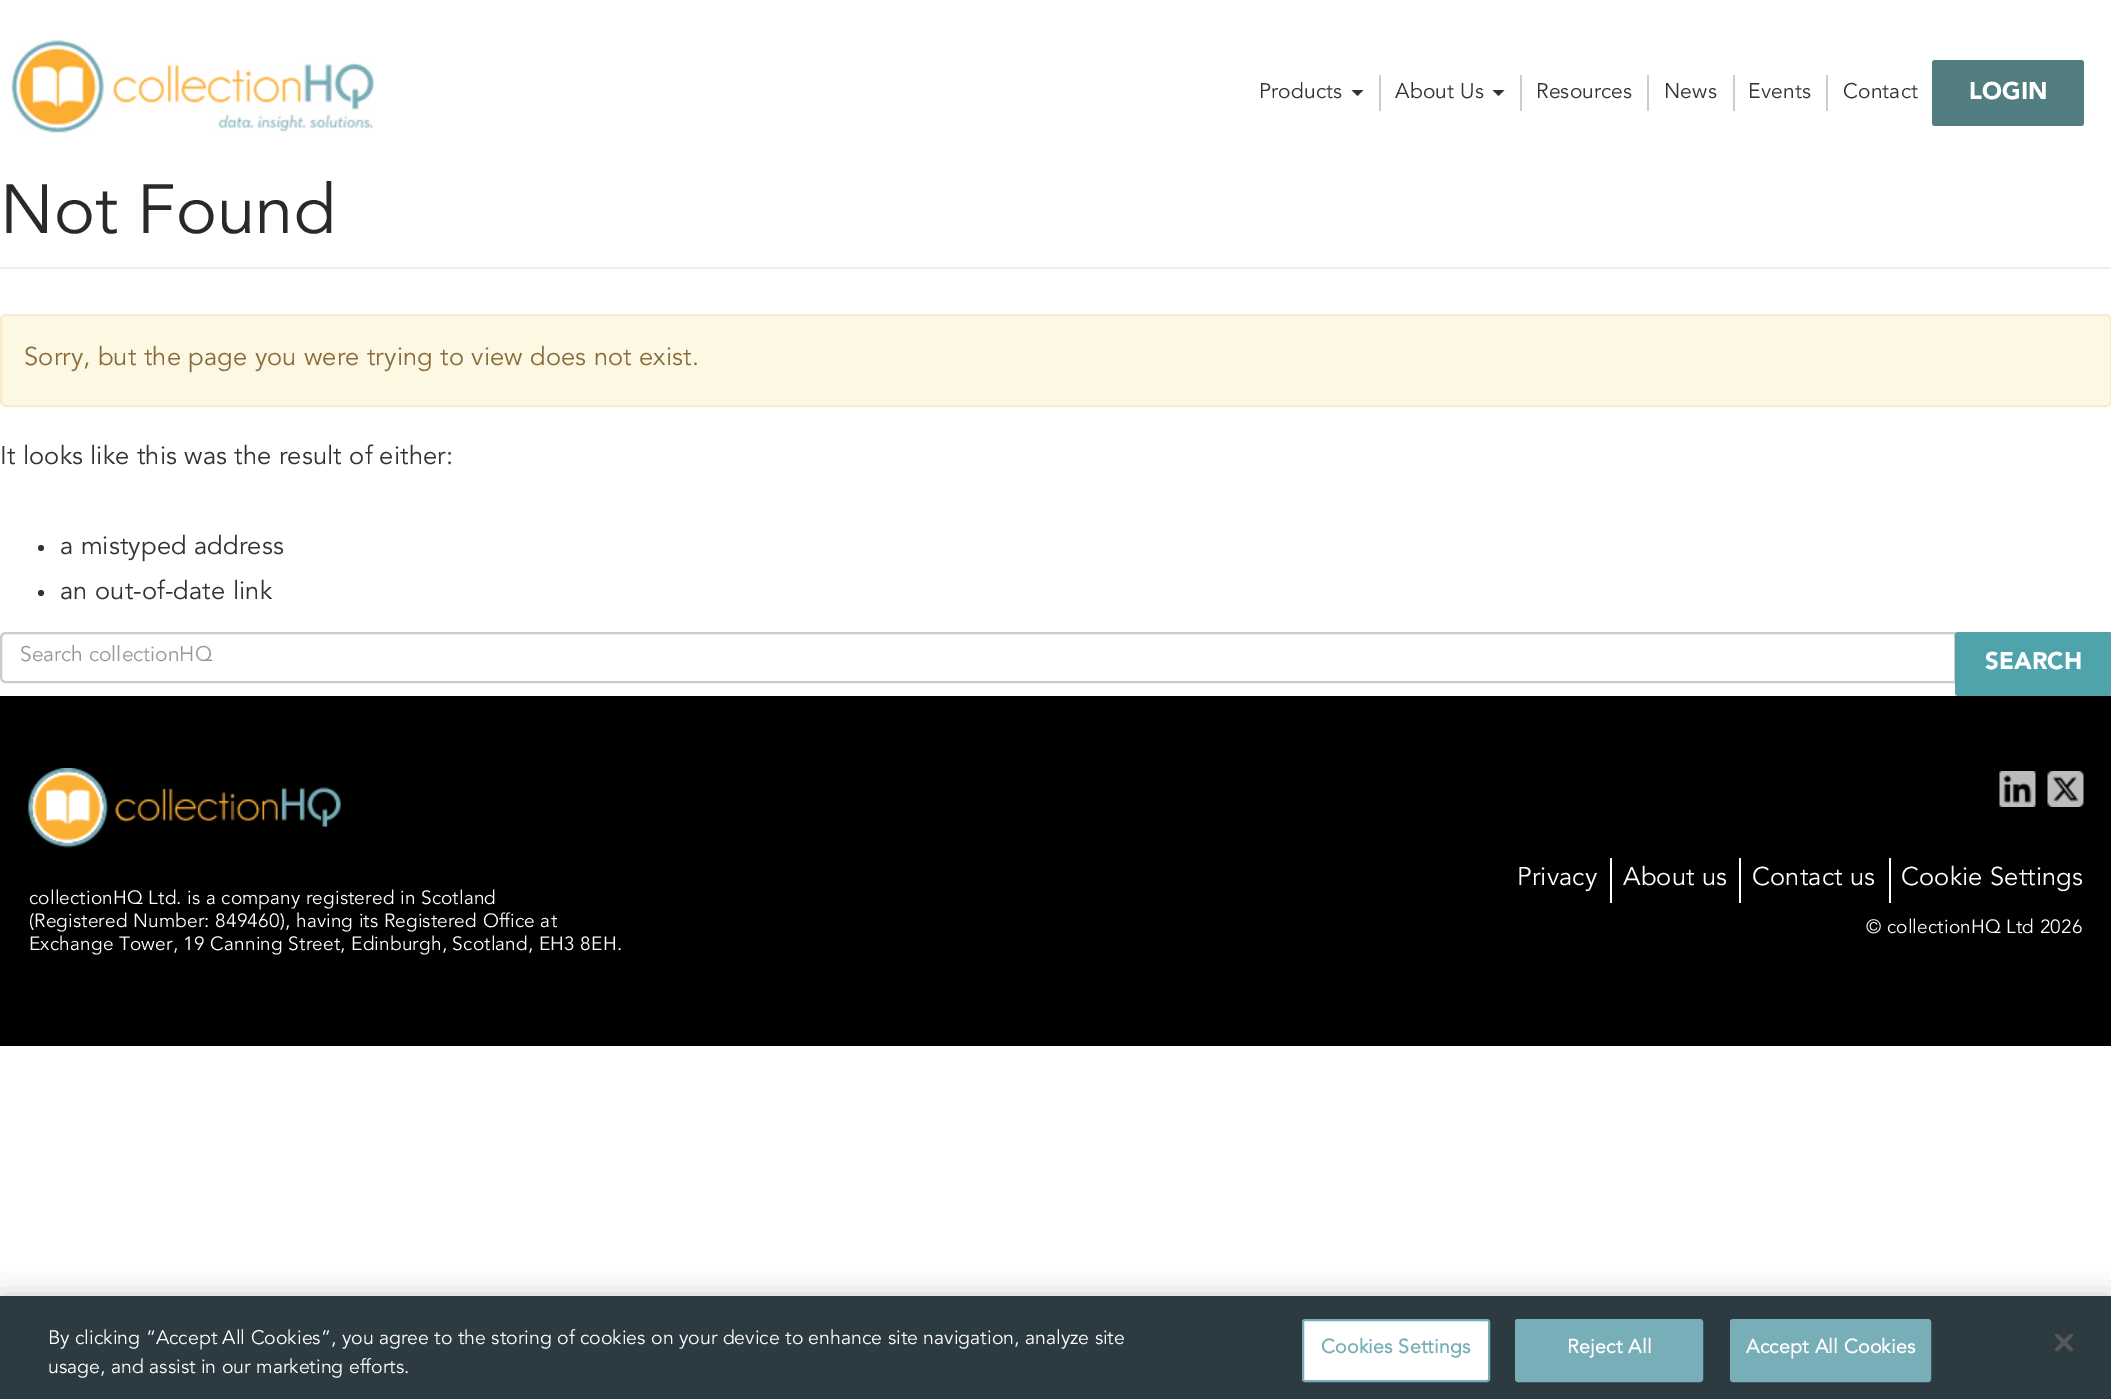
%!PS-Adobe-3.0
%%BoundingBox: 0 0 2111 1399
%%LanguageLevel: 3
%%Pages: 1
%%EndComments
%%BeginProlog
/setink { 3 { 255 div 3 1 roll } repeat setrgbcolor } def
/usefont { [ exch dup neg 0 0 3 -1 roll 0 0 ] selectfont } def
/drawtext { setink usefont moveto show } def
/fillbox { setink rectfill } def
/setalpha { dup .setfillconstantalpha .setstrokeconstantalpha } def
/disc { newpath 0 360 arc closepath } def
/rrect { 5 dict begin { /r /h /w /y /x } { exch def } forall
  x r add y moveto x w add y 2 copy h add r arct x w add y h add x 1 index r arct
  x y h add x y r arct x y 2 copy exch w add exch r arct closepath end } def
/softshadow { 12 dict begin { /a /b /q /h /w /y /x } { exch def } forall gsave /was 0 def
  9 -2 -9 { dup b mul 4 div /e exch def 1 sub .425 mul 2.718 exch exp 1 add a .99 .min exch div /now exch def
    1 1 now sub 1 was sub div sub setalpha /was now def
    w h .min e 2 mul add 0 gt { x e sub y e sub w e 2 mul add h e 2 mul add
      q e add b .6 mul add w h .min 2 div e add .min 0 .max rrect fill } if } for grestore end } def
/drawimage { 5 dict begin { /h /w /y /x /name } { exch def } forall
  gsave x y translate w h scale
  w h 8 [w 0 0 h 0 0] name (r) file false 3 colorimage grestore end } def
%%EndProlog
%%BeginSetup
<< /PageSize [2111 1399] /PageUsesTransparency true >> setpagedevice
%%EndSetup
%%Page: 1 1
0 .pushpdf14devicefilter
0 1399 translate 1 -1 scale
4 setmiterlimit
0 0 2111 1399 255 255 255 fillbox
(assets/img1.rgb) 11 40 363 93 drawimage
1379 75 2 36 204 204 204 fillbox
/Avenir-Regular 21 usefont
51 51 51 setink
1259 98 moveto 0.15 0 (Products) ashow
1351.5 90 moveto 1363.5 90 lineto 1357.5 96 lineto closepath fill
1520 75 2 36 204 204 204 fillbox
51 51 51 setink
1395 98 moveto 0.15 0 (About Us) ashow
1492.5 90 moveto 1504.5 90 lineto 1498.5 96 lineto closepath fill
1647 75 2 36 204 204 204 fillbox
51 51 51 setink
1536 98 moveto 0.15 0 (Resources) ashow
1733 75 2 36 204 204 204 fillbox
51 51 51 setink
1664 98 moveto 0.15 0 (News) ashow
1826 75 2 36 204 204 204 fillbox
51 51 51 setink
1748 98 moveto 0.15 0 (Events) ashow
1843 98 moveto 0.15 0 (Contact) ashow
82 126 130 setink
1932 60 152 66 3 rrect fill
/Avenir-Black 24 usefont
255 255 255 setink
1969 99 moveto 0.15 0 (LOGIN) ashow
0 267 2111 2 238 238 238 fillbox
/Avenir-Regular 69 usefont
40 42 42 setink
0 233 moveto 0.15 0 (Not Found) ashow
252 248 227 setink
1 315 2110 91 5 rrect gsave fill grestore
250 235 204 setink
2 setlinewidth
stroke
/Avenir-Regular 25.5 usefont
138 109 59 setink
24 365 moveto 0.15 0 (Sorry, but the page you were trying to view does not exist.) ashow
51 51 51 setink
0 464 moveto 0.15 0 (It looks like this was the result of either:) ashow
41 548 3 disc fill
60 554 moveto 0.15 0 (a mistyped address) ashow
41 593 3 disc fill
60 599 moveto 0.15 0 (an out-of-date link) ashow
236 236 236 setink
6 634 moveto 1954 634 lineto 1954 681 lineto 1955 681 lineto 1955 633 lineto 7 633 lineto 4 633 2 635 2 638 curveto 2 639 lineto 2 637 4 634 6 634 curveto closepath fill
204 204 204 setink
6 633 moveto 1955 633 lineto 1955 682 lineto 6 682 lineto 3 682 1 680 1 677 curveto 1 638 lineto 1 635 3 633 6 633 curveto closepath stroke
(Search collectionHQ) 20 661 /Avenir-Regular 21 153 153 153 drawtext
79 164 171 setink
1955 632 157 64 3 rrect fill
(SEARCH) 1985 669 /Avenir-Black 24 255 255 255 drawtext
0 696 2111 350 0 0 0 fillbox
(assets/img2.rgb) 28 768 313 80 drawimage
/Avenir-Regular 19.1 usefont
255 255 255 setink
29 904 moveto 0.15 0 (collectionHQ Ltd. is a company registered in Scotland) ashow
29 927 moveto 0.15 0 (\(Registered Number: 849460\), having its Registered Office at) ashow
29 950 moveto 0.15 0 (Exchange Tower, 19 Canning Street, Edinburgh, Scotland, EH3 8EH.) ashow
(assets/img3.rgb) 1999 771 37 36 drawimage
(assets/img4.rgb) 2047 771 37 36 drawimage
1610 858 2 45 255 255 255 fillbox
/Avenir-Regular 25.5 usefont
1517 885 moveto 0.15 0 (Privacy) ashow
1739 858 2 45 255 255 255 fillbox
1623 885 moveto 0.15 0 (About us) ashow
1889 858 2 45 255 255 255 fillbox
1752 885 moveto 0.15 0 (Contact us) ashow
1901 885 moveto 0.15 0 (Cookie Settings) ashow
/Avenir-Regular 19.1 usefont
1866 933 moveto 0.15 0 (© collectionHQ Ltd 2026) ashow
0 0 0 setink
0 1296 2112 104 0 13.5 0.2 softshadow
0 1296 2111 103 44 58 66 fillbox
(By clicking “Accept All Cookies”, you agree to the storing of cookies on your device to enhance site navigation, analyze site) 48 1344 /Avenir-Regular 19.5 255 255 255 drawtext
(usage, and assist in our marketing efforts.) 48 1373 /Avenir-Regular 19.5 255 255 255 drawtext
1303 1320 186 61 2 rrect gsave fill grestore
120 174 184 setink
stroke
/Avenir-Bold 19.5 usefont
1321 1353 moveto 0.25 0 (Cookies Settings) ashow
1516 1320 186 61 2 rrect gsave fill grestore
stroke
255 255 255 setink
1567 1353 moveto 0.25 0 (Reject All) ashow
120 174 184 setink
1731 1320 199 61 2 rrect gsave fill grestore
stroke
255 255 255 setink
1746 1353 moveto 0.25 0 (Accept All Cookies) ashow
(assets/img5.rgb) 2055 1334 18 18 drawimage
.poppdf14devicefilter showpage
%%EOF
